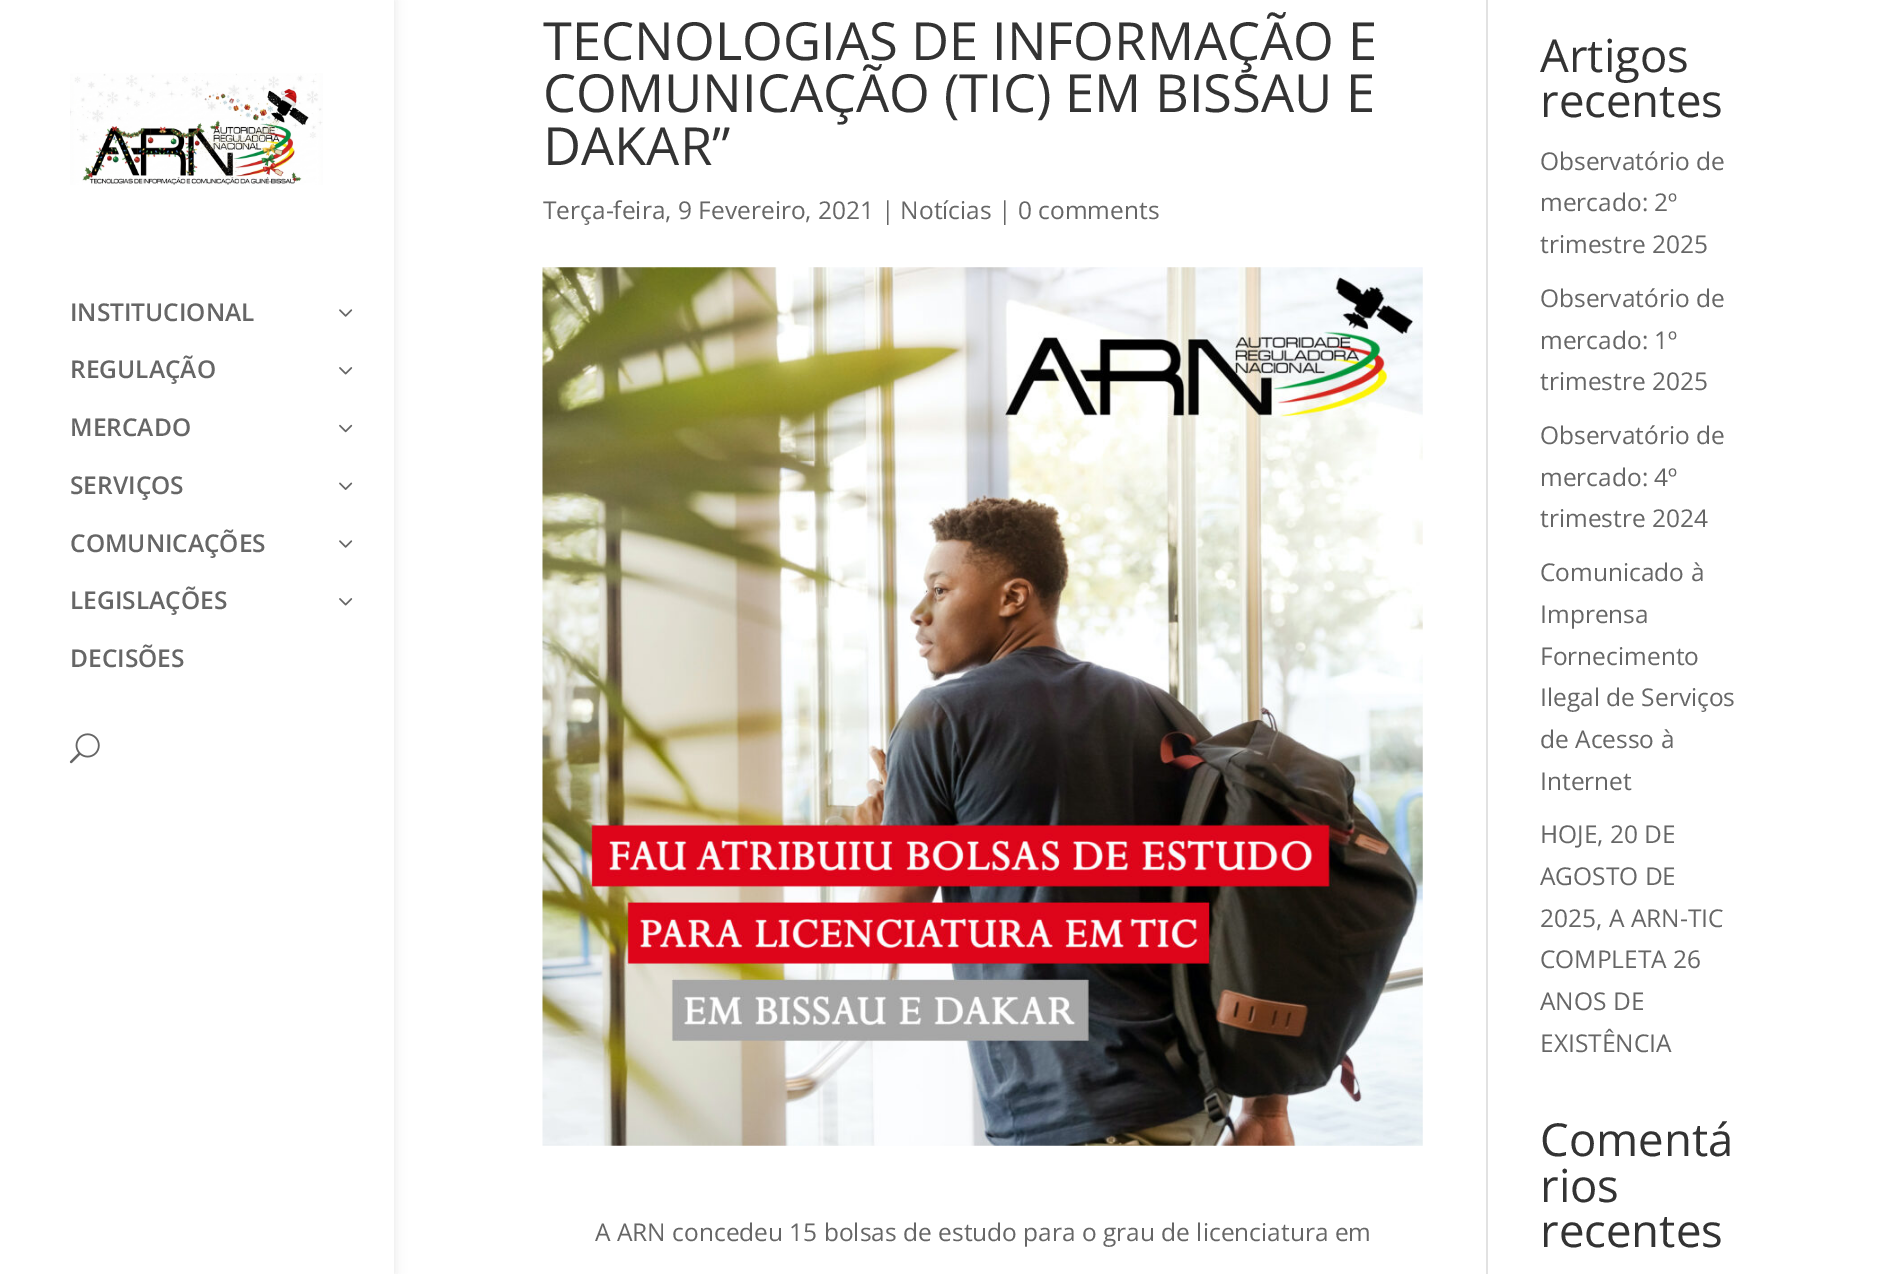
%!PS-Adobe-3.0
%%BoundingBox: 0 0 1885 1274
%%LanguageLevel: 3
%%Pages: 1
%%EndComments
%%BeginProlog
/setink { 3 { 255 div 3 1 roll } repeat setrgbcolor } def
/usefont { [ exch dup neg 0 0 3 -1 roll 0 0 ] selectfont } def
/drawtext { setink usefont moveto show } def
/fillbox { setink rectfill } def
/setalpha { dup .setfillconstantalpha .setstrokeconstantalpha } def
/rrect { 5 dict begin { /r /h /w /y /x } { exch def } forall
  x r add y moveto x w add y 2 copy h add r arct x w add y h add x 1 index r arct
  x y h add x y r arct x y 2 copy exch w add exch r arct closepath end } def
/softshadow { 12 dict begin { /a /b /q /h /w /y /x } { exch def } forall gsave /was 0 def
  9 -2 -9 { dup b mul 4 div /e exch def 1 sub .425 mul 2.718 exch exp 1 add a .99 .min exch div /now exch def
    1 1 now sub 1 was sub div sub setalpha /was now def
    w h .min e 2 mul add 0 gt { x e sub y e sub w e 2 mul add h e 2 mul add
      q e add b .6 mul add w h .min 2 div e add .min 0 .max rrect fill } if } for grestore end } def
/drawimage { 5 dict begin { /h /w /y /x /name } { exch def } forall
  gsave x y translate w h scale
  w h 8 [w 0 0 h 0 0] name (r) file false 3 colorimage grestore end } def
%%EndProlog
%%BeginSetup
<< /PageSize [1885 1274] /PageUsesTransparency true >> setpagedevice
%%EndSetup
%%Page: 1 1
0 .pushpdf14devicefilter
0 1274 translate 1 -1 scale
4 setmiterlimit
0 0 1885 1274 255 255 255 fillbox
0 0 0 setink
0 0 394 1274 0 6 0.1 softshadow
0 0 394 1274 255 255 255 fillbox
(assets/img1.rgb) 70 73 253 112 drawimage
(INSTITUCIONAL) 70 321 /OpenSans-SemiBold 24.5 102 102 102 drawtext
(assets/img2.rgb) 339 309 14 8 drawimage
(REGULAÇÃO) 70 378 /OpenSans-SemiBold 24.5 102 102 102 drawtext
(assets/img3.rgb) 339 367 14 8 drawimage
(MERCADO) 70 436 /OpenSans-SemiBold 24.5 102 102 102 drawtext
(assets/img4.rgb) 339 424 14 9 drawimage
(SERVIÇOS) 70 494 /OpenSans-SemiBold 24.5 102 102 102 drawtext
(assets/img5.rgb) 339 482 14 8 drawimage
(COMUNICAÇÕES) 70 552 /OpenSans-SemiBold 24.5 102 102 102 drawtext
(assets/img2.rgb) 339 540 14 8 drawimage
(LEGISLAÇÕES) 70 609 /OpenSans-SemiBold 24.5 102 102 102 drawtext
(assets/img3.rgb) 339 598 14 8 drawimage
(DECISÕES) 70 667 /OpenSans-SemiBold 24.5 102 102 102 drawtext
(assets/img6.rgb) 69 733 31 31 drawimage
1486 0 2 1274 226 226 226 fillbox
(TECNOLOGIAS DE INFORMAÇÃO E) 543 60 /OpenSans-Regular 52.5 51 51 51 drawtext
(COMUNICAÇÃO \(TIC\) EM BISSAU E) 543 112 /OpenSans-Regular 52.5 51 51 51 drawtext
(DAKAR”) 543 165 /OpenSans-Regular 52.5 51 51 51 drawtext
(Terça-feira, 9 Fevereiro, 2021 | Notícias | 0 comments) 543 219 /OpenSans-Regular 24.5 102 102 102 drawtext
(assets/img7.rgb) 542 267 881 879 drawimage
(A ARN concedeu 15 bolsas de estudo para o grau de licenciatura em) 595 1241 /OpenSans-Regular 24.5 102 102 102 drawtext
(Artigos) 1540 72 /OpenSans-Regular 45.5 51 51 51 drawtext
(recentes) 1540 117 /OpenSans-Regular 45.5 51 51 51 drawtext
(Observatório de) 1540 170 /OpenSans-Regular 24.5 102 102 102 drawtext
(mercado: 2º) 1540 211 /OpenSans-Regular 24.5 102 102 102 drawtext
(trimestre 2025) 1540 253 /OpenSans-Regular 24.5 102 102 102 drawtext
(Observatório de) 1540 307 /OpenSans-Regular 24.5 102 102 102 drawtext
(mercado: 1º) 1540 349 /OpenSans-Regular 24.5 102 102 102 drawtext
(trimestre 2025) 1540 390 /OpenSans-Regular 24.5 102 102 102 drawtext
(Observatório de) 1540 444 /OpenSans-Regular 24.5 102 102 102 drawtext
(mercado: 4º) 1540 486 /OpenSans-Regular 24.5 102 102 102 drawtext
(trimestre 2024) 1540 527 /OpenSans-Regular 24.5 102 102 102 drawtext
(Comunicado à) 1540 581 /OpenSans-Regular 24.5 102 102 102 drawtext
(Imprensa) 1540 623 /OpenSans-Regular 24.5 102 102 102 drawtext
(Fornecimento) 1540 665 /OpenSans-Regular 24.5 102 102 102 drawtext
(Ilegal de Serviços) 1540 706 /OpenSans-Regular 24.5 102 102 102 drawtext
(de Acesso à) 1540 748 /OpenSans-Regular 24.5 102 102 102 drawtext
(Internet) 1540 790 /OpenSans-Regular 24.5 102 102 102 drawtext
(HOJE, 20 DE) 1540 843 /OpenSans-Regular 24.5 102 102 102 drawtext
(AGOSTO DE) 1540 885 /OpenSans-Regular 24.5 102 102 102 drawtext
(2025, A ARN-TIC) 1540 927 /OpenSans-Regular 24.5 102 102 102 drawtext
(COMPLETA 26) 1540 968 /OpenSans-Regular 24.5 102 102 102 drawtext
(ANOS DE) 1540 1010 /OpenSans-Regular 24.5 102 102 102 drawtext
(EXISTÊNCIA) 1540 1052 /OpenSans-Regular 24.5 102 102 102 drawtext
(Comentá) 1540 1156 /OpenSans-Regular 45.5 51 51 51 drawtext
(rios) 1540 1202 /OpenSans-Regular 45.5 51 51 51 drawtext
(recentes) 1540 1247 /OpenSans-Regular 45.5 51 51 51 drawtext
.poppdf14devicefilter showpage
%%EOF
